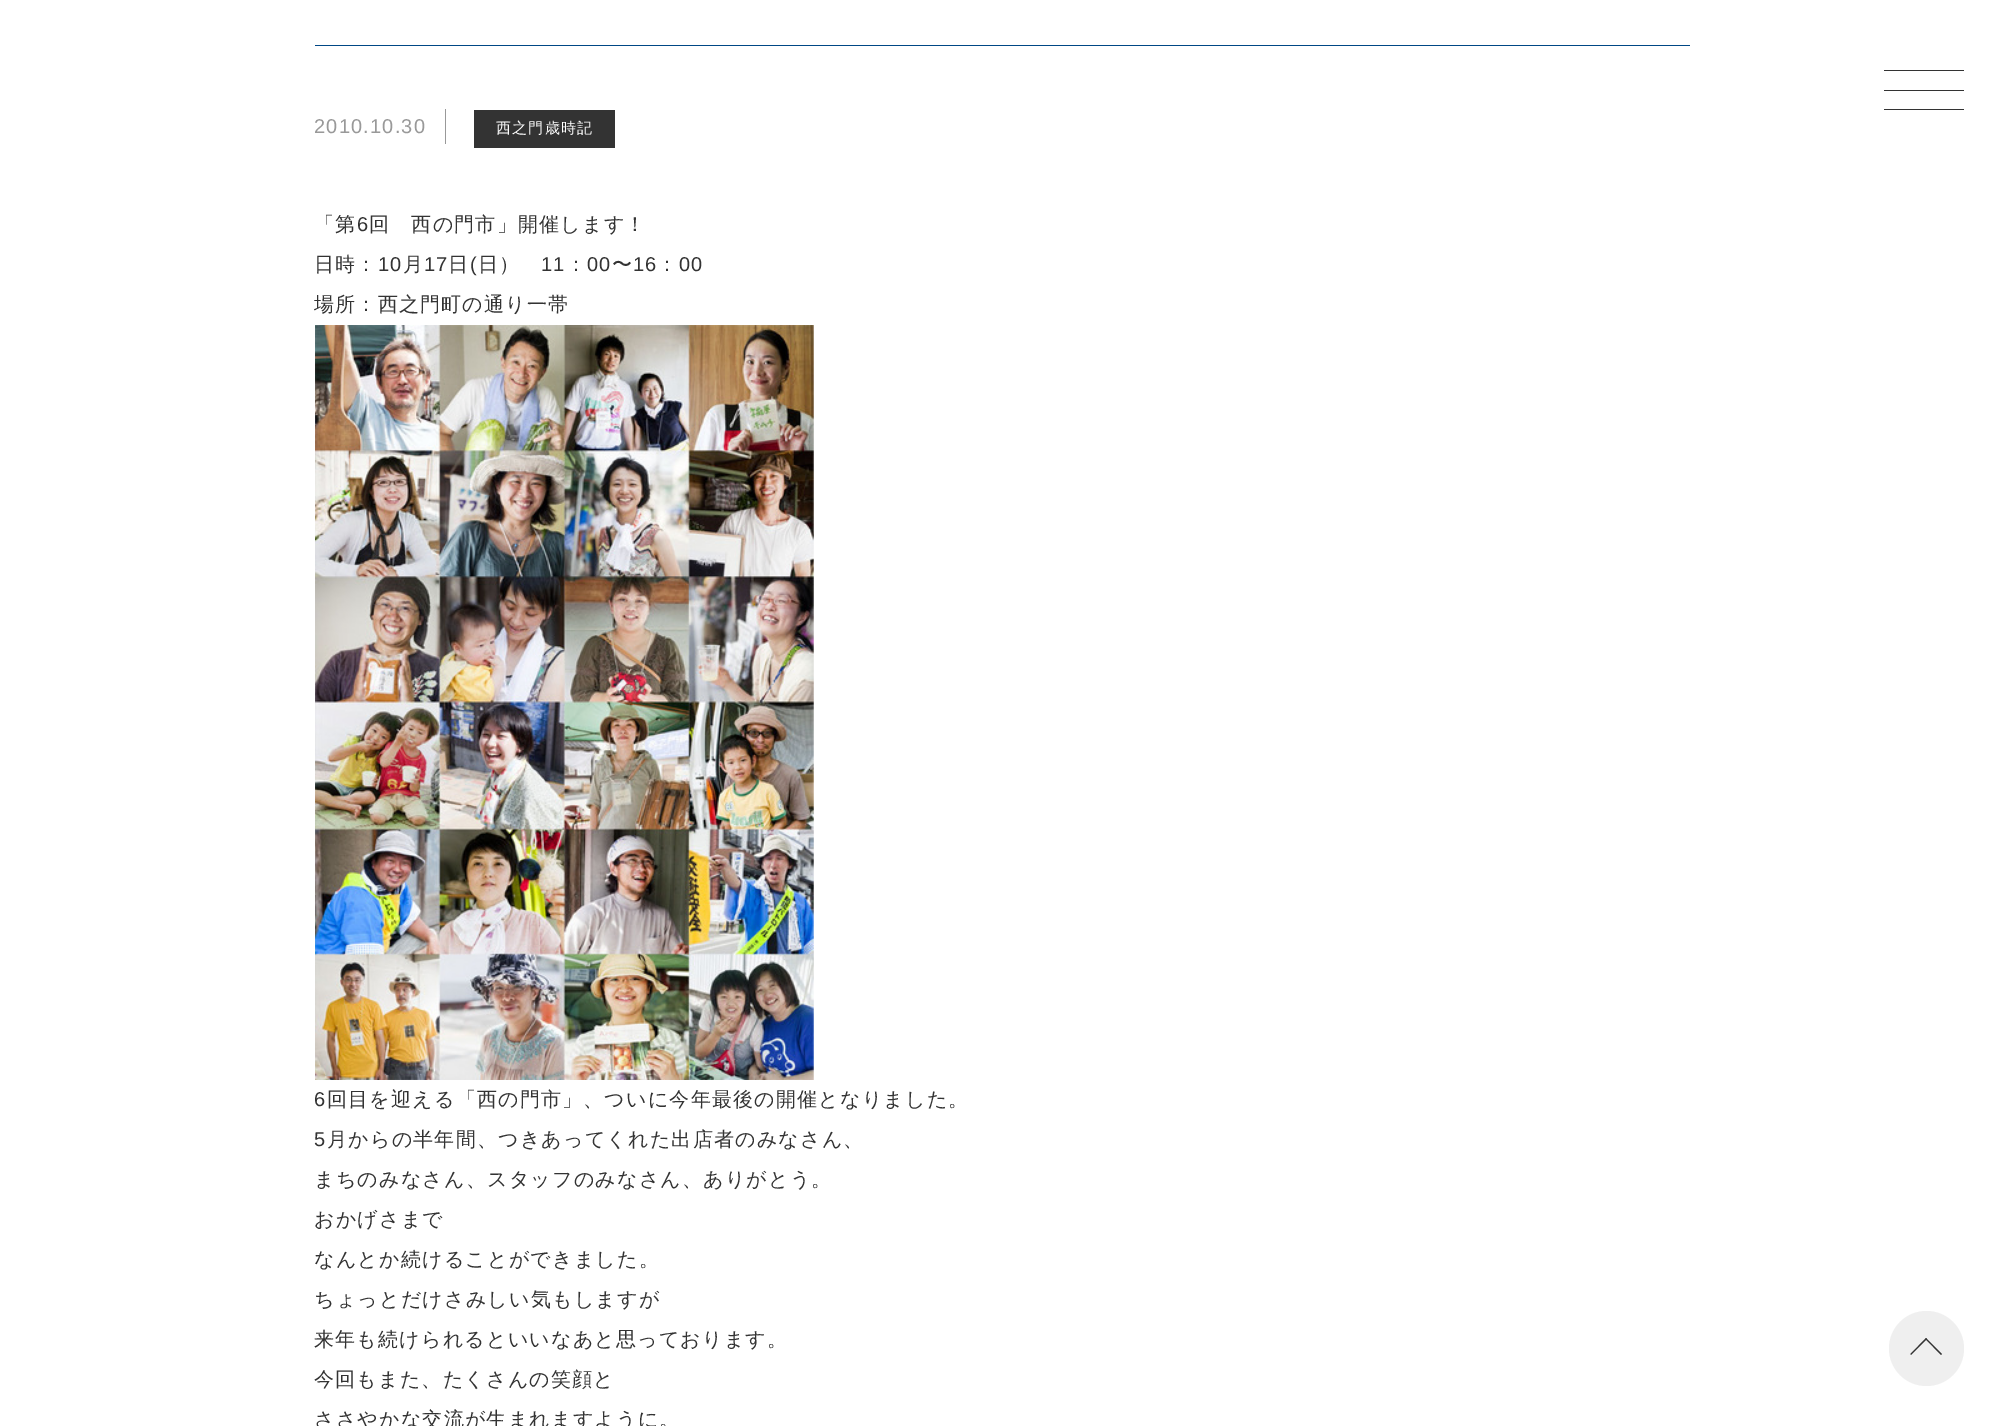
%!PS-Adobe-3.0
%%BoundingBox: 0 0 2003 1426
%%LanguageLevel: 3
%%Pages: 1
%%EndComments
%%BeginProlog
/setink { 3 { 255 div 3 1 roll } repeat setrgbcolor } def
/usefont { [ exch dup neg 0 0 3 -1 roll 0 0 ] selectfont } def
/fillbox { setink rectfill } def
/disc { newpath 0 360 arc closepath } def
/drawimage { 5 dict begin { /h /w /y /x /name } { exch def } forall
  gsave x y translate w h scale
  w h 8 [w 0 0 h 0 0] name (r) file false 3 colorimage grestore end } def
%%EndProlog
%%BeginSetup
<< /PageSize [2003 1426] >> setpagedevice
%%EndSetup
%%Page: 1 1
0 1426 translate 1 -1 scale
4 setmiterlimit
0 0 2003 1426 255 255 255 fillbox
1884 70 80 1 51 51 51 fillbox
1884 90 80 1 51 51 51 fillbox
1884 109 80 1 51 51 51 fillbox
315 45 1375 1 0 71 133 fillbox
/LiberationSans-Regular 20 usefont
153 153 153 setink
314 133 moveto 1.2 0 (2010.10.30) ashow
445 109 1 35 153 153 153 fillbox
474 110 141 38 51 51 51 fillbox
/WenQuanYiZenHei-Medium 15 usefont
255 255 255 setink
496 133 moveto 1.2 0 (西之門歳時記) ashow
/WenQuanYiZenHei-Medium 20 usefont
51 51 51 setink
314 231 moveto 1.2 0 (「第) ashow
/LiberationSans-Regular 20 usefont
357 231 moveto 1.2 0 (6) ashow
/WenQuanYiZenHei-Medium 20 usefont
369 231 moveto 1.2 0 (回　西の門市」開催します！) ashow
314 271 moveto 1.2 0 (日時：) ashow
/LiberationSans-Regular 20 usefont
378 271 moveto 1.2 0 (10) ashow
/WenQuanYiZenHei-Medium 20 usefont
403 271 moveto 1.2 0 (月) ashow
/LiberationSans-Regular 20 usefont
424 271 moveto 1.2 0 (17) ashow
/WenQuanYiZenHei-Medium 20 usefont
448 271 moveto 1.2 0 (日) ashow
/LiberationSans-Regular 20 usefont
470 271 moveto 1.2 0 (\() ashow
/WenQuanYiZenHei-Medium 20 usefont
478 271 moveto 1.2 0 (日）) ashow
/LiberationSans-Regular 20 usefont
541 271 moveto 1.2 0 (11) ashow
/WenQuanYiZenHei-Medium 20 usefont
566 271 moveto 1.2 0 (：) ashow
/LiberationSans-Regular 20 usefont
587 271 moveto 1.2 0 (00) ashow
/WenQuanYiZenHei-Medium 20 usefont
612 271 moveto 1.2 0 (〜) ashow
/LiberationSans-Regular 20 usefont
633 271 moveto 1.2 0 (16) ashow
/WenQuanYiZenHei-Medium 20 usefont
657 271 moveto 1.2 0 (：) ashow
/LiberationSans-Regular 20 usefont
679 271 moveto 1.2 0 (00) ashow
/WenQuanYiZenHei-Medium 20 usefont
314 311 moveto 1.2 0 (場所：西之門町の通り一帯) ashow
(assets/img1.rgb) 315 325 499 755 drawimage
/LiberationSans-Regular 20 usefont
314 1106 moveto 1.2 0 (6) ashow
/WenQuanYiZenHei-Medium 20 usefont
327 1106 moveto 1.2 0 (回目を迎える「西の門市」、ついに今年最後の開催となりました。) ashow
/LiberationSans-Regular 20 usefont
314 1146 moveto 1.2 0 (5) ashow
/WenQuanYiZenHei-Medium 20 usefont
327 1146 moveto 1.2 0 (月からの半年間、つきあってくれた出店者のみなさん、) ashow
314 1186 moveto 1.2 0 (まちのみなさん、スタッフのみなさん、ありがとう。) ashow
314 1226 moveto 1.2 0 (おかげさまで) ashow
314 1266 moveto 1.2 0 (なんとか続けることができました。) ashow
314 1306 moveto 1.2 0 (ちょっとだけさみしい気もしますが) ashow
314 1346 moveto 1.2 0 (来年も続けられるといいなあと思っております。) ashow
314 1386 moveto 1.2 0 (今回もまた、たくさんの笑顔と) ashow
314 1426 moveto 1.2 0 (ささやかな交流が生まれますように。) ashow
239 239 239 setink
1926.5 1348.5 37.5 disc fill
51 51 51 setink
1926 1338 moveto 1942 1354 lineto 1941 1355 lineto 1925.5 1339 lineto closepath fill
1926 1338 moveto 1927 1339 lineto 1911 1355 lineto 1910.5 1354 lineto closepath fill
showpage
%%EOF
